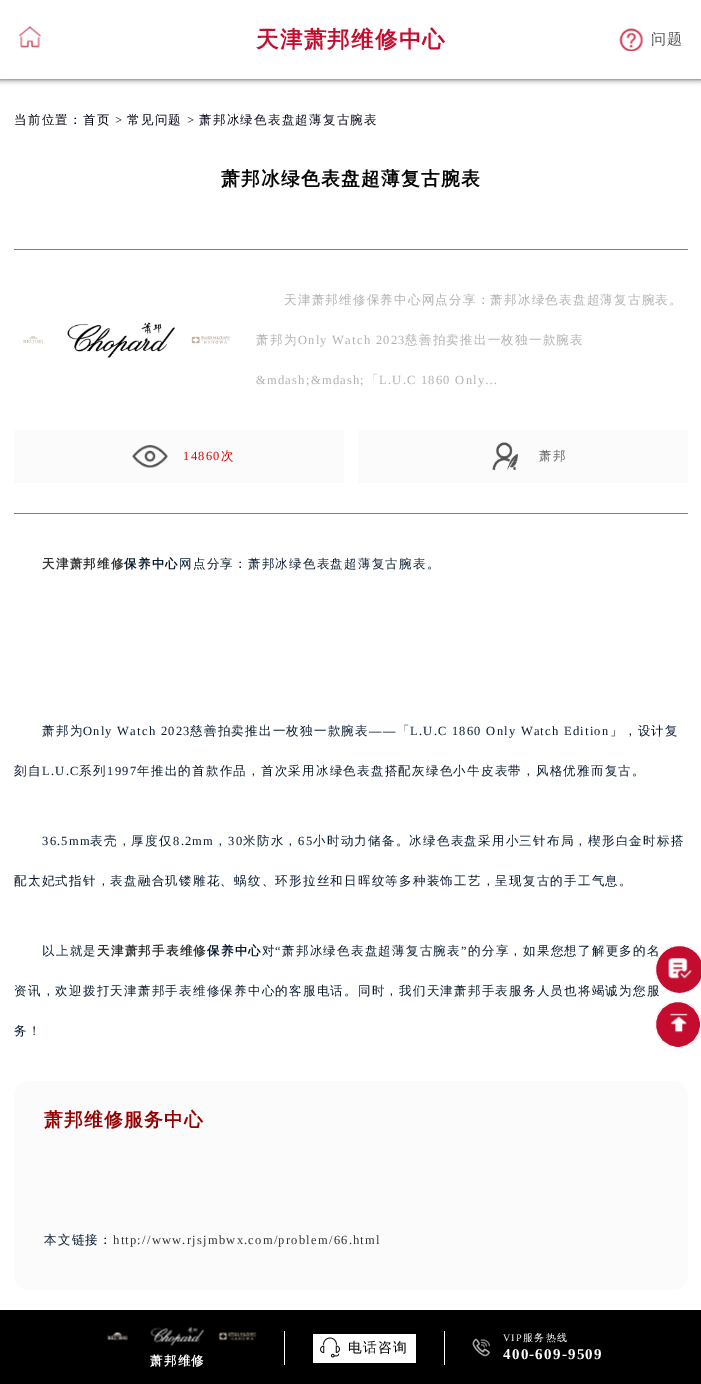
%!PS-Adobe-3.0
%%BoundingBox: 0 0 701 1384
%%LanguageLevel: 3
%%Pages: 1
%%EndComments
%%BeginProlog
/setink { 3 { 255 div 3 1 roll } repeat setrgbcolor } def
/usefont { [ exch dup neg 0 0 3 -1 roll 0 0 ] selectfont } def
/fillbox { setink rectfill } def
/setalpha { dup .setfillconstantalpha .setstrokeconstantalpha } def
/disc { newpath 0 360 arc closepath } def
/rrect { 5 dict begin { /r /h /w /y /x } { exch def } forall
  x r add y moveto x w add y 2 copy h add r arct x w add y h add x 1 index r arct
  x y h add x y r arct x y 2 copy exch w add exch r arct closepath end } def
/softshadow { 12 dict begin { /a /b /q /h /w /y /x } { exch def } forall gsave /was 0 def
  9 -2 -9 { dup b mul 4 div /e exch def 1 sub .425 mul 2.718 exch exp 1 add a .99 .min exch div /now exch def
    1 1 now sub 1 was sub div sub setalpha /was now def
    w h .min e 2 mul add 0 gt { x e sub y e sub w e 2 mul add h e 2 mul add
      q e add b .6 mul add w h .min 2 div e add .min 0 .max rrect fill } if } for grestore end } def
/drawimage { 5 dict begin { /h /w /y /x /name } { exch def } forall
  gsave x y translate w h scale
  w h 8 [w 0 0 h 0 0] name (r) file false 3 colorimage grestore end } def
%%EndProlog
%%BeginSetup
<< /PageSize [701 1384] /PageUsesTransparency true >> setpagedevice
%%EndSetup
%%Page: 1 1
0 .pushpdf14devicefilter
0 1384 translate 1 -1 scale
4 setmiterlimit
0 0 701 1384 255 255 255 fillbox
51 51 51 setink
0 0 701 79 0 3 1 softshadow
0 0 701 79 255 255 255 fillbox
(assets/img1.rgb) 19 26 22 22 drawimage
/WenQuanYiZenHei-Bold 22.5 usefont
196 13 46 setink
256 47 moveto 1.25 0 (天津萧邦维修中心) ashow
(assets/img2.rgb) 619 28 24 23 drawimage
/WenQuanYiZenHei-Medium 15 usefont
85 85 85 setink
651 44 moveto 1.25 0 (问题) ashow
/WenQuanYiZenHei-Medium 12.5 usefont
2 4 20 setink
14 124 moveto 1.25 0 (当前位置：首页) ashow
/LiberationSerif-Regular 12.5 usefont
115 124 moveto 1.25 0 (>) ashow
/WenQuanYiZenHei-Medium 12.5 usefont
127 124 moveto 1.25 0 (常见问题) ashow
/LiberationSerif-Regular 12.5 usefont
187 124 moveto 1.25 0 (>) ashow
/WenQuanYiZenHei-Medium 12.5 usefont
199 124 moveto 1.25 0 (萧邦冰绿色表盘超薄复古腕表) ashow
/WenQuanYiZenHei-Bold 18.75 usefont
6 6 6 setink
221 185 moveto 1.25 0 (萧邦冰绿色表盘超薄复古腕表) ashow
14 249 674 1 125 125 125 fillbox
14 513 674 1 125 125 125 fillbox
(assets/img3.rgb) 23 336 20 8 drawimage
(assets/img4.rgb) 67 322 108 36 drawimage
(assets/img5.rgb) 191 336 39 8 drawimage
/WenQuanYiZenHei-Medium 12.5 usefont
175 176 177 setink
284 304 moveto 1.25 0 (天津萧邦维修保养中心网点分享：萧邦冰绿色表盘超薄复古腕表。) ashow
256 344 moveto 1.25 0 (萧邦为) ashow
/LiberationSerif-Regular 12.5 usefont
298 344 moveto 1.25 0 (Only Watch 2023) ashow
/WenQuanYiZenHei-Medium 12.5 usefont
405 344 moveto 1.25 0 (慈善拍卖推出一枚独一款腕表) ashow
/LiberationSerif-Regular 12.5 usefont
256 384 moveto 1.25 0 (&mdash;&mdash;) ashow
/WenQuanYiZenHei-Medium 12.5 usefont
366 384 moveto 1.25 0 (「) ashow
/LiberationSerif-Regular 12.5 usefont
379 384 moveto 1.25 0 (L.U.C 1860 Only…) ashow
14 430 330 53 251 251 251 fillbox
(assets/img6.rgb) 132 445 36 23 drawimage
222 0 0 setink
183 460 moveto 1.25 0 (14860) ashow
/WenQuanYiZenHei-Medium 12.5 usefont
221 460 moveto 1.25 0 (次) ashow
358 430 330 53 251 251 251 fillbox
(assets/img7.rgb) 492 442 26 28 drawimage
97 97 97 setink
539 460 moveto 1.25 0 (萧邦) ashow
/WenQuanYiZenHei-Bold 12.5 usefont
51 51 51 setink
42 568 moveto 1.25 0 (天津萧邦维修) ashow
7 25 47 setink
124 568 moveto 1.25 0 (保养中心) ashow
/WenQuanYiZenHei-Medium 12.5 usefont
179 568 moveto 1.25 0 (网点分享：萧邦冰绿色表盘超薄复古腕表。) ashow
42 735 moveto 1.25 0 (萧邦为) ashow
/LiberationSerif-Regular 12.5 usefont
83 735 moveto 1.25 0 (Only Watch 2023) ashow
/WenQuanYiZenHei-Medium 12.5 usefont
190 735 moveto 1.25 0 (慈善拍卖推出一枚独一款腕表) ashow
/LiberationSerif-Regular 12.5 usefont
369 735 moveto 1.25 0 (——) ashow
/WenQuanYiZenHei-Medium 12.5 usefont
397 735 moveto 1.25 0 (「) ashow
/LiberationSerif-Regular 12.5 usefont
410 735 moveto 1.25 0 (L.U.C 1860 Only Watch Edition) ashow
/WenQuanYiZenHei-Medium 12.5 usefont
610 735 moveto 1.25 0 (」，设计复) ashow
14 775 moveto 1.25 0 (刻自) ashow
/LiberationSerif-Regular 12.5 usefont
42 775 moveto 1.25 0 (L.U.C) ashow
/WenQuanYiZenHei-Medium 12.5 usefont
79 775 moveto 1.25 0 (系列) ashow
/LiberationSerif-Regular 12.5 usefont
107 775 moveto 1.25 0 (1997) ashow
/WenQuanYiZenHei-Medium 12.5 usefont
137 775 moveto 1.25 0 (年推出的首款作品，首次采用冰绿色表盘搭配灰绿色小牛皮表带，风格优雅而复古。) ashow
/LiberationSerif-Regular 12.5 usefont
42 845 moveto 1.25 0 (36.5mm) ashow
/WenQuanYiZenHei-Medium 12.5 usefont
90 845 moveto 1.25 0 (表壳，厚度仅) ashow
/LiberationSerif-Regular 12.5 usefont
173 845 moveto 1.25 0 (8.2mm) ashow
/WenQuanYiZenHei-Medium 12.5 usefont
214 845 moveto 1.25 0 (，) ashow
/LiberationSerif-Regular 12.5 usefont
228 845 moveto 1.25 0 (30) ashow
/WenQuanYiZenHei-Medium 12.5 usefont
243 845 moveto 1.25 0 (米防水，) ashow
/LiberationSerif-Regular 12.5 usefont
298 845 moveto 1.25 0 (65) ashow
/WenQuanYiZenHei-Medium 12.5 usefont
313 845 moveto 1.25 0 (小时动力储备。冰绿色表盘采用小三针布局，楔形白金时标搭) ashow
14 885 moveto 1.25 0 (配太妃式指针，表盘融合玑镂雕花、蜗纹、环形拉丝和日晖纹等多种装饰工艺，呈现复古的手工气息。) ashow
42 955 moveto 1.25 0 (以上就是) ashow
/WenQuanYiZenHei-Bold 12.5 usefont
51 51 51 setink
97 955 moveto 1.25 0 (天津萧邦手表维修) ashow
7 25 47 setink
207 955 moveto 1.25 0 (保养中心) ashow
/WenQuanYiZenHei-Medium 12.5 usefont
262 955 moveto 1.25 0 (对) ashow
/LiberationSerif-Regular 12.5 usefont
275 955 moveto 1.25 0 (“) ashow
/WenQuanYiZenHei-Medium 12.5 usefont
282 955 moveto 1.25 0 (萧邦冰绿色表盘超薄复古腕表) ashow
/LiberationSerif-Regular 12.5 usefont
461 955 moveto 1.25 0 (”) ashow
/WenQuanYiZenHei-Medium 12.5 usefont
468 955 moveto 1.25 0 (的分享，如果您想了解更多的名) ashow
14 995 moveto 1.25 0 (资讯，欢迎拨打天津萧邦手表维修保养中心的客服电话。同时，我们天津萧邦手表服务人员也将竭诚为您服) ashow
14 1035 moveto 1.25 0 (务！) ashow
251 251 251 setink
14 1081 674 209 15 rrect fill
/WenQuanYiZenHei-Bold 18.75 usefont
150 0 0 setink
44 1126 moveto 1.25 0 (萧邦维修服务中心) ashow
/WenQuanYiZenHei-Medium 12.5 usefont
7 25 47 setink
44 1244 moveto 1.25 0 (本文链接：) ashow
/LiberationSerif-Regular 12.5 usefont
51 51 51 setink
113 1244 moveto 1.25 0 (http://www.rjsjmbwx.com/problem/66.html) ashow
196 13 46 setink
679.5 969.5 24 disc gsave fill grestore
255 255 255 setink
stroke
(assets/img8.rgb) 668 958 24 21 drawimage
196 13 46 setink
655.5 1001.5 45 46 22.5 rrect gsave fill grestore
255 255 255 setink
stroke
(assets/img9.rgb) 670 1013 18 20 drawimage
0 1310 701 74 0 0 0 fillbox
284 1331 1 34 255 255 255 fillbox
313 1334 103 29 255 255 255 fillbox
(assets/img10.rgb) 320 1337 20 21 drawimage
/WenQuanYiZenHei-Medium 13.75 usefont
0 0 0 setink
348 1352 moveto 1.25 0 (电话咨询) ashow
444 1331 1 34 255 255 255 fillbox
(assets/img11.rgb) 472 1338 18 19 drawimage
/LiberationSerif-Regular 10 usefont
503 1341 moveto 1.25 0 (VIP) ashow
/WenQuanYiZenHei-Medium 10 usefont
523 1341 moveto 1.25 0 (服务热线) ashow
/LiberationSerif-Bold 15 usefont
503 1359 moveto 1.25 0 (400-609-9509) ashow
(assets/img12.rgb) 107 1332 21 9 drawimage
(assets/img13.rgb) 150 1327 55 19 drawimage
(assets/img14.rgb) 218 1332 39 9 drawimage
/WenQuanYiZenHei-Bold 12.5 usefont
150 1365 moveto 1.25 0 (萧邦维修) ashow
.poppdf14devicefilter showpage
%%EOF
